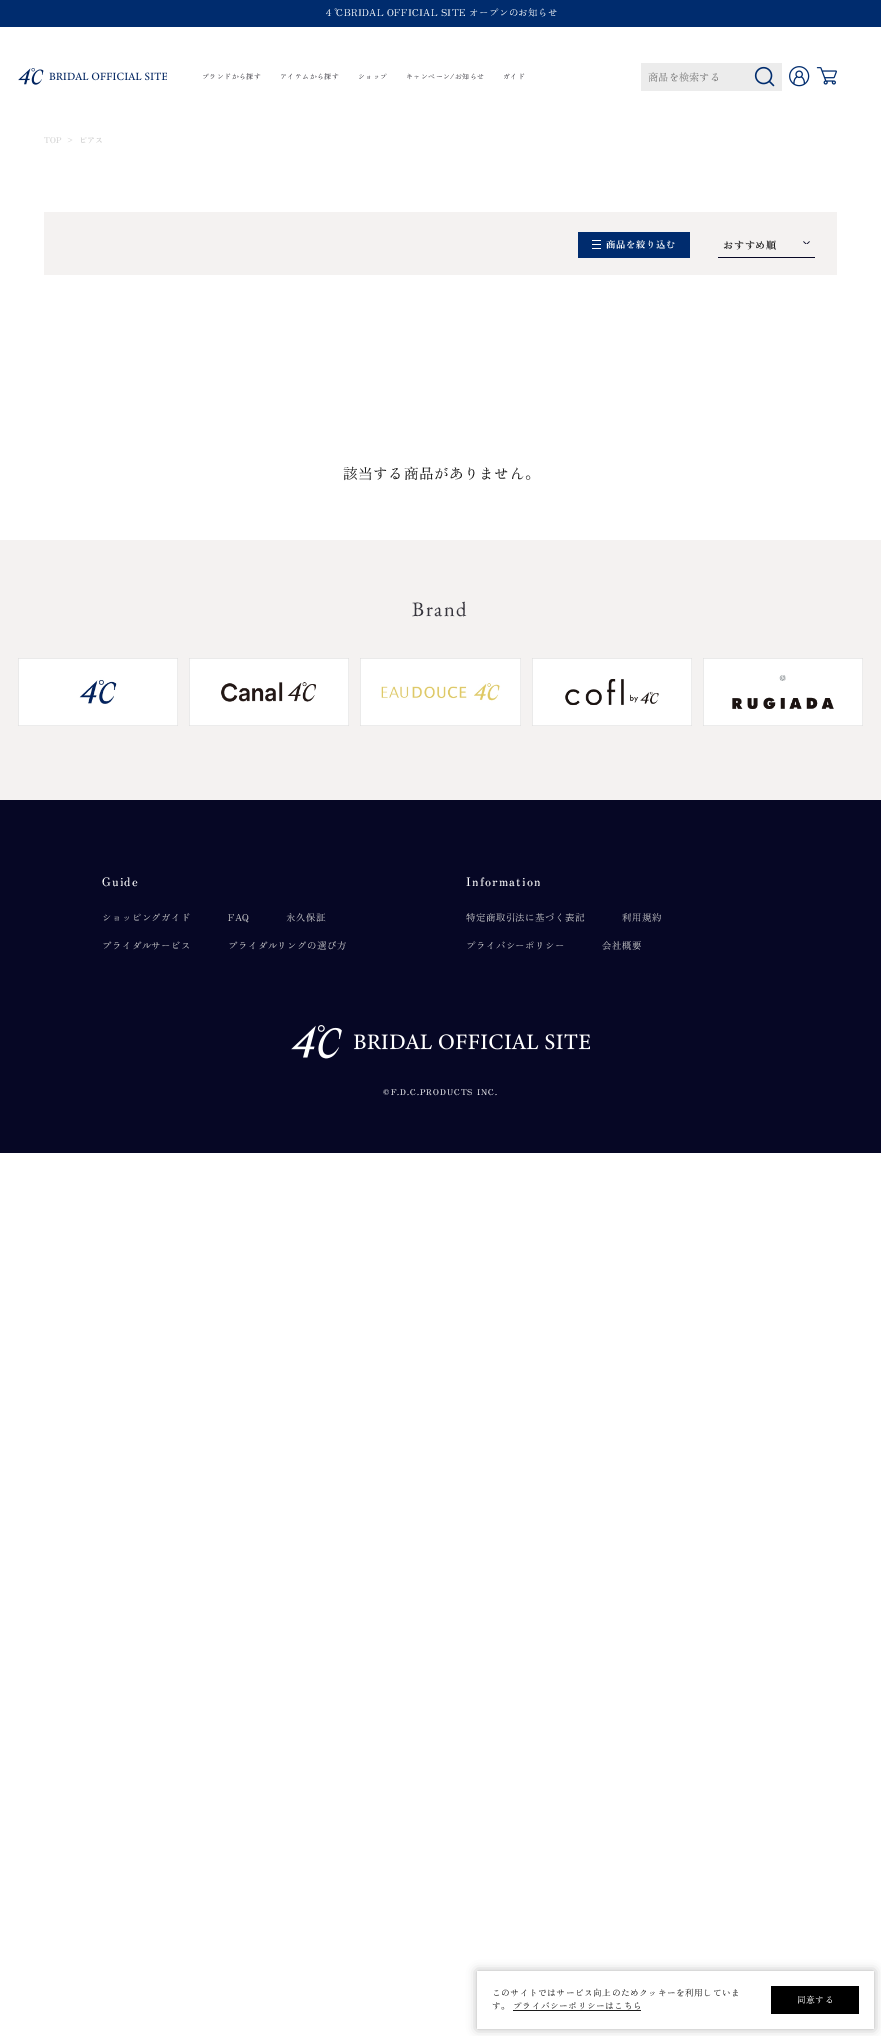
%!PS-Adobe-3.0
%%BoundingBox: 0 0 881 2036
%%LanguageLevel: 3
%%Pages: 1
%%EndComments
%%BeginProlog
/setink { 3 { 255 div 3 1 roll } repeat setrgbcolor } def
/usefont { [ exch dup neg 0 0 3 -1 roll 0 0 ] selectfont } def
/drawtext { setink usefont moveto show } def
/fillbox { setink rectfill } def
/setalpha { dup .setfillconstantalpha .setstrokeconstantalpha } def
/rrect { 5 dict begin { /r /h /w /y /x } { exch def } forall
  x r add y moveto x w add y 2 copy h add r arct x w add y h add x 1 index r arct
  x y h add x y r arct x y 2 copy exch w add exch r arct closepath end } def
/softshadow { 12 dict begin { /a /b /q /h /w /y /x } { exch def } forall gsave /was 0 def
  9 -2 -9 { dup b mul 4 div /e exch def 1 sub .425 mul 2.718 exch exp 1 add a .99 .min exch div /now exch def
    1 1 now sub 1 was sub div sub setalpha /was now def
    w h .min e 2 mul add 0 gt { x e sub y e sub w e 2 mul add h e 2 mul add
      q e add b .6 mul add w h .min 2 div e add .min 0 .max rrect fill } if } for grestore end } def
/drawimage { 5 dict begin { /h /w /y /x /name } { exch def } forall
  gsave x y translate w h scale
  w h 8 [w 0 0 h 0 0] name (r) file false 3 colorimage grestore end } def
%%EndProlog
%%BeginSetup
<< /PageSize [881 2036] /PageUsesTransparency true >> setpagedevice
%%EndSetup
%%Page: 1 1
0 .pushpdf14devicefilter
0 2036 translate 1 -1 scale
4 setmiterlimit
0 0 881 2036 255 255 255 fillbox
0 0 881 27 0 44 110 fillbox
/ZenOldMincho-Regular 9.5 usefont
255 255 255 setink
324 16 moveto 0.4 0 (４℃BRIDAL OFFICIAL SITE オープンのお知らせ) ashow
(assets/img1.rgb) 18 68 149 17 drawimage
/ZenOldMincho-Regular 7 usefont
54 53 61 setink
202 79 moveto 0.4 0 (ブランドから探す) ashow
280 79 moveto 0.4 0 (アイテムから探す) ashow
358 79 moveto 0.4 0 (ショップ) ashow
406 79 moveto 0.4 0 (キャンペーン/お知らせ) ashow
503 79 moveto 0.4 0 (ガイド) ashow
641 63 141 28 236 236 236 fillbox
(商品を検索する) 648 81 /ZenOldMincho-Regular 10.25 117 117 117 drawtext
(assets/img2.rgb) 754 66 21 21 drawimage
(assets/img3.rgb) 789 66 21 21 drawimage
(assets/img4.rgb) 816 67 21 18 drawimage
(TOP) 44 143 /ZenOldMincho-Regular 8.1 206 206 206 drawtext
(>) 66 143 /ZenOldMincho-Regular 8.1 206 206 206 drawtext
(ピアス) 79 143 /ZenOldMincho-Bold 8.1 206 206 206 drawtext
44 212 793 63 244 242 241 fillbox
578 232 112 26 0 44 110 fillbox
592 244 9 1 255 255 255 fillbox
592 240 9 1 255 255 255 fillbox
592 248 9 1 255 255 255 fillbox
/ZenOldMincho-Bold 9.5 usefont
606 248 moveto 0.5 0 (商品を絞り込む) ashow
718 257 97 1 6 7 37 fillbox
/ZenOldMincho-Bold 10.25 usefont
28 28 28 setink
723 249 moveto 0.5 0 (おすすめ順) ashow
gsave
803 241 8 3 rectclip
6 7 37 setink
0.7 setlinewidth
803.5 241.5 moveto 806.5 244.5 lineto 809.5 241.5 lineto stroke
grestore
/ZenOldMincho-Regular 14.75 usefont
343 479 moveto 0.4 0 (該当する商品がありません。) ashow
0 540 881 260 244 242 241 fillbox
/EBGaramond-Regular 20.5 usefont
54 53 61 setink
412 616 moveto 1.5 0 (Brand) ashow
(assets/img5.rgb) 18 658 160 68 drawimage
(assets/img6.rgb) 189 658 160 68 drawimage
(assets/img7.rgb) 360 658 161 68 drawimage
(assets/img8.rgb) 532 658 160 68 drawimage
(assets/img9.rgb) 703 658 160 68 drawimage
0 800 881 353 6 7 37 fillbox
/ZenOldMincho-Medium 11.75 usefont
255 255 255 setink
102 886 moveto 1.25 0 (Guide) ashow
/ZenOldMincho-Regular 9.5 usefont
206 206 206 setink
102 921 moveto 0.4 0 (ショッピングガイド) ashow
228 921 moveto 0.4 0 (FAQ) ashow
286 921 moveto 0.4 0 (永久保証) ashow
102 949 moveto 0.4 0 (ブライダルサービス) ashow
228 949 moveto 0.4 0 (ブライダルリングの選び方) ashow
/ZenOldMincho-Medium 11.75 usefont
255 255 255 setink
466 886 moveto 1.25 0 (Information) ashow
/ZenOldMincho-Regular 9.5 usefont
206 206 206 setink
466 921 moveto 0.4 0 (特定商取引法に基づく表記) ashow
622 921 moveto 0.4 0 (利用規約) ashow
466 949 moveto 0.4 0 (プライバシーポリシー) ashow
602 949 moveto 0.4 0 (会社概要) ashow
(assets/img10.rgb) 291 1025 299 34 drawimage
/ZenOldMincho-Regular 8.1 usefont
255 255 255 setink
383 1095 moveto 1 0 (©F.D.C.PRODUCTS INC.) ashow
gsave
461 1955 moveto 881 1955 lineto 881 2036 lineto 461 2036 lineto closepath 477 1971 moveto 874 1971 lineto 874 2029 lineto 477 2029 lineto closepath eoclip newpath
0 0 0 setink
477 1971 397 58 0 5 0.3 softshadow
grestore
/ZenOldMincho-Regular 8.8 usefont
28 28 28 setink
492 1996 moveto 0.4 0 (このサイトではサービス向上のためクッキーを利用していま) ashow
492 2009 moveto 0.4 0 (す。 プライバシーポリシーはこちら) ashow
513 2010 128 1 28 28 28 fillbox
771 1986 88 28 0 0 0 fillbox
255 255 255 setink
797 2003 moveto 0.4 0 (同意する) ashow
.poppdf14devicefilter showpage
%%EOF
